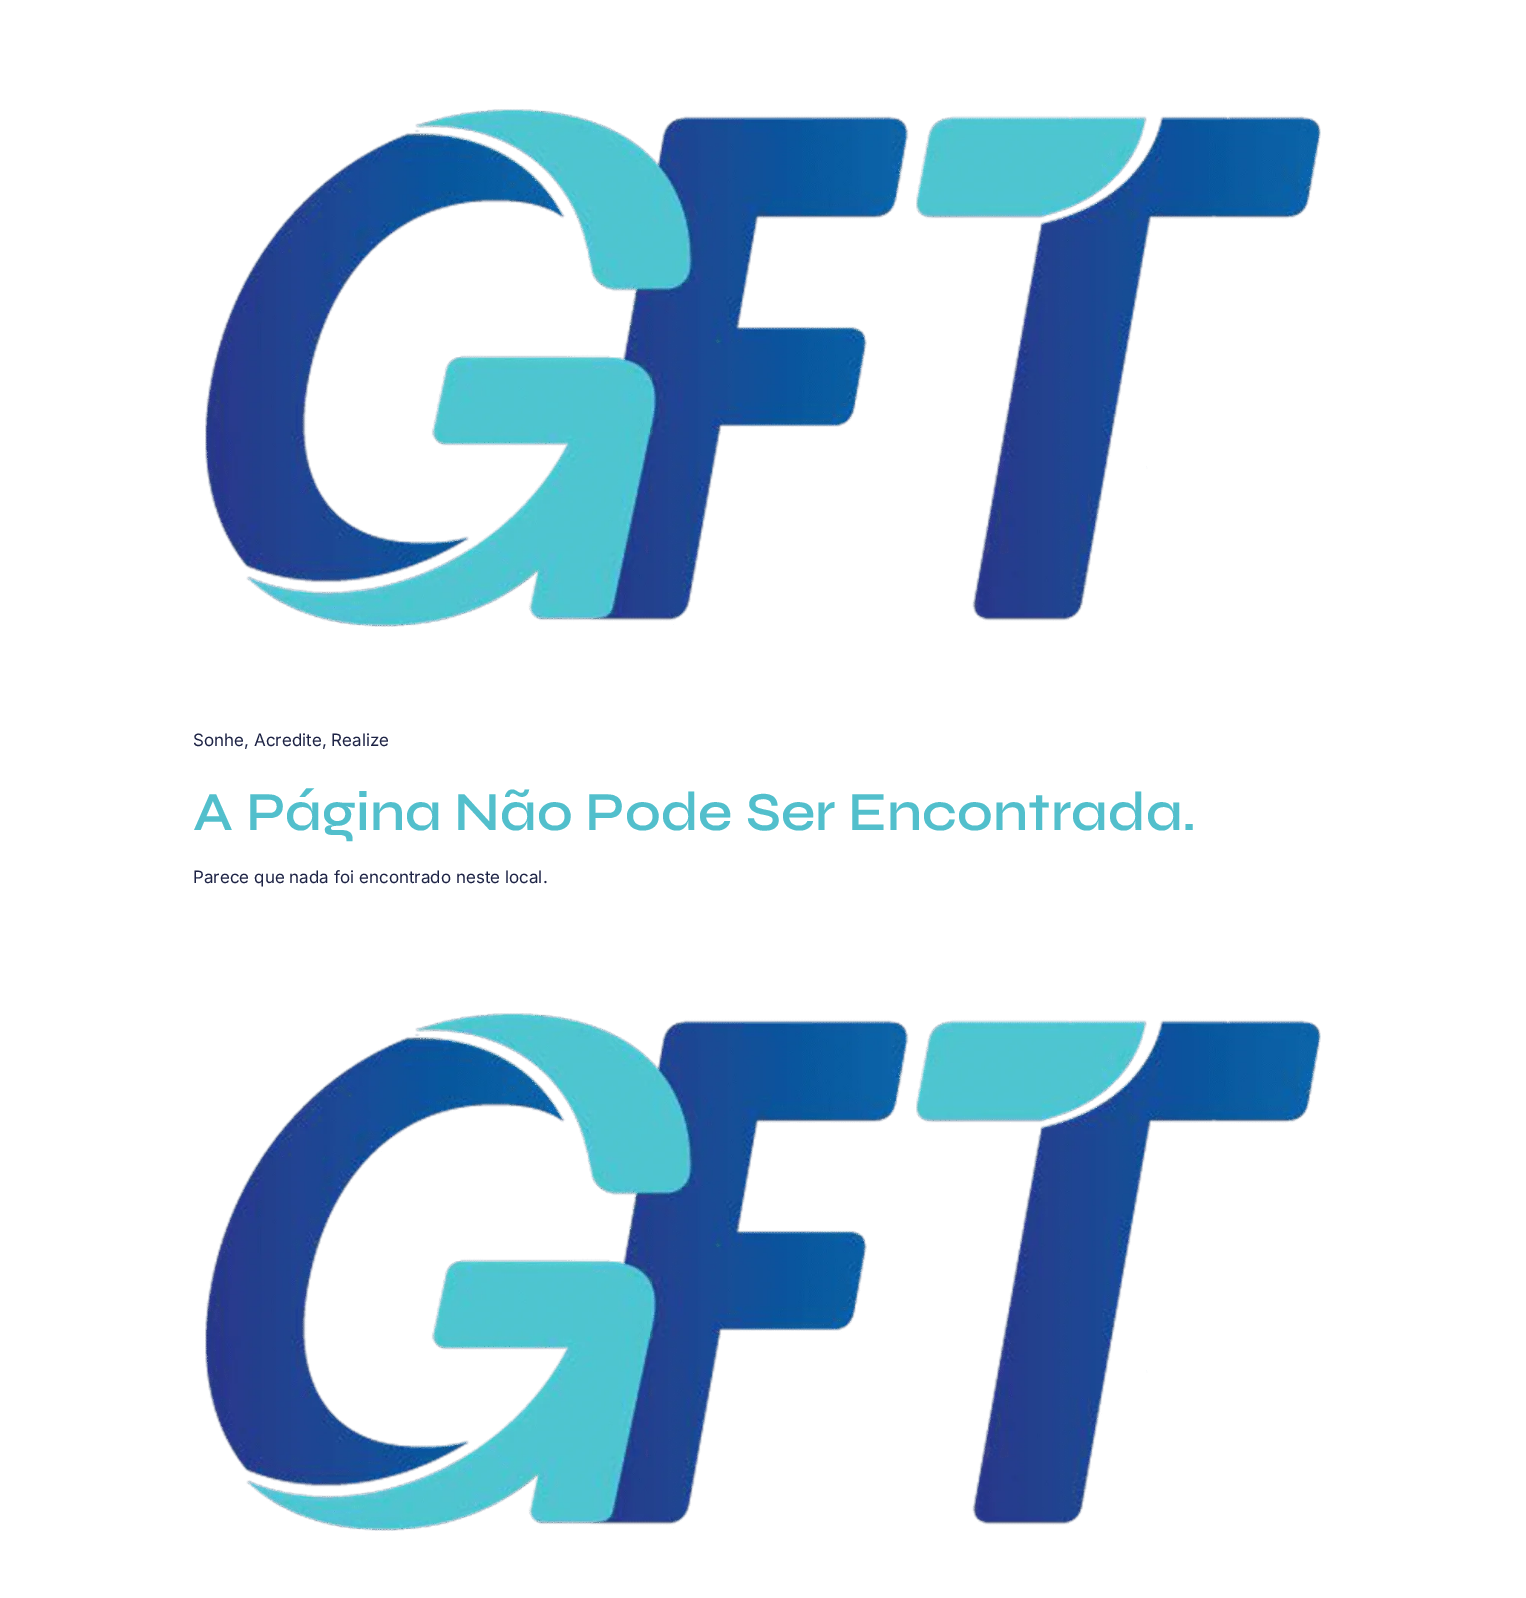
%!PS-Adobe-3.0
%%BoundingBox: 0 0 1526 1598
%%LanguageLevel: 3
%%Pages: 1
%%EndComments
%%BeginProlog
/setink { 3 { 255 div 3 1 roll } repeat setrgbcolor } def
/usefont { [ exch dup neg 0 0 3 -1 roll 0 0 ] selectfont } def
/drawtext { setink usefont moveto show } def
/fillbox { setink rectfill } def
/drawimage { 5 dict begin { /h /w /y /x /name } { exch def } forall
  gsave x y translate w h scale
  w h 8 [w 0 0 h 0 0] name (r) file false 3 colorimage grestore end } def
%%EndProlog
%%BeginSetup
<< /PageSize [1526 1598] >> setpagedevice
%%EndSetup
%%Page: 1 1
0 1598 translate 1 -1 scale
4 setmiterlimit
0 0 1526 1598 255 255 255 fillbox
(assets/img1.rgb) 205 109 1116 518 drawimage
(Sonhe, Acredite, Realize) 193 746 /Inter-Regular 17 29 35 69 drawtext
(A Página Não Pode Ser Encontrada.) 193 830 /Syne-SemiBold 55 82 191 204 drawtext
(Parece que nada foi encontrado neste local.) 193 883 /Inter-Regular 17 29 35 69 drawtext
(assets/img1.rgb) 205 1013 1116 518 drawimage
showpage
%%EOF
